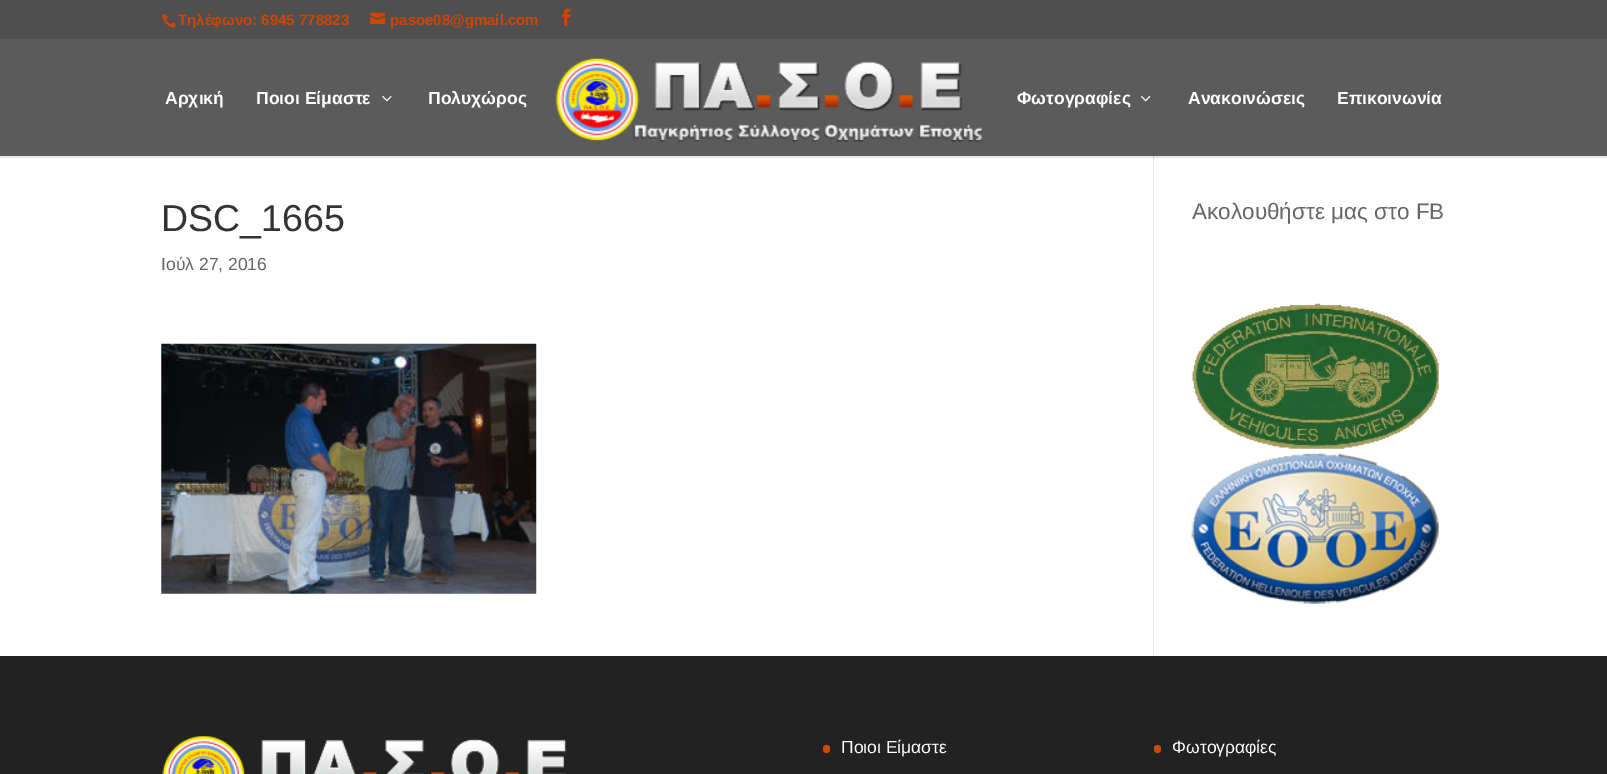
%!PS-Adobe-3.0
%%BoundingBox: 0 0 1607 774
%%LanguageLevel: 3
%%Pages: 1
%%EndComments
%%BeginProlog
/setink { 3 { 255 div 3 1 roll } repeat setrgbcolor } def
/usefont { [ exch dup neg 0 0 3 -1 roll 0 0 ] selectfont } def
/drawtext { setink usefont moveto show } def
/fillbox { setink rectfill } def
/setalpha { dup .setfillconstantalpha .setstrokeconstantalpha } def
/rrect { 5 dict begin { /r /h /w /y /x } { exch def } forall
  x r add y moveto x w add y 2 copy h add r arct x w add y h add x 1 index r arct
  x y h add x y r arct x y 2 copy exch w add exch r arct closepath end } def
/drawimage { 5 dict begin { /h /w /y /x /name } { exch def } forall
  gsave x y translate w h scale
  w h 8 [w 0 0 h 0 0] name (r) file false 3 colorimage grestore end } def
%%EndProlog
%%BeginSetup
<< /PageSize [1607 774] /PageUsesTransparency true >> setpagedevice
%%EndSetup
%%Page: 1 1
0 .pushpdf14devicefilter
0 774 translate 1 -1 scale
4 setmiterlimit
0 0 1607 774 255 255 255 fillbox
0 0 1607 39 79 79 79 fillbox
(assets/img1.rgb) 161 14 15 14 drawimage
(Τηλέφωνο: 6945 778823) 178 25 /Arimo-Bold 15 209 69 0 drawtext
(assets/img2.rgb) 370 12 15 13 drawimage
(pasoe08@gmail.com) 390 25 /Arimo-Bold 15 209 69 0 drawtext
(assets/img3.rgb) 561 8 10 19 drawimage
1153 156 1 500 226 226 226 fillbox
0.1 setalpha
0 0 0 setink
0 156 moveto 0 158 lineto 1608 158 lineto 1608 40 lineto 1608 156 lineto closepath fill
1 setalpha
0 39 1607 117 91 91 91 fillbox
(Αρχική) 165 104 /Arimo-Bold 17.5 255 255 255 drawtext
(Ποιοι Είμαστε) 256 104 /Arimo-Bold 17.5 255 255 255 drawtext
(assets/img4.rgb) 382 96 10 6 drawimage
(Πολυχώρος) 428 104 /Arimo-Bold 17.5 255 255 255 drawtext
(assets/img5.rgb) 555 58 428 85 drawimage
(Φωτογραφίες) 1017 104 /Arimo-Bold 17.5 255 255 255 drawtext
(assets/img6.rgb) 1141 96 10 6 drawimage
(Ανακοινώσεις) 1188 104 /Arimo-Bold 17.5 255 255 255 drawtext
(Επικοινωνία) 1337 104 /Arimo-Bold 17.5 255 255 255 drawtext
(DSC_1665) 161 231 /Arimo-Regular 37.5 51 51 51 drawtext
(Ιούλ 27, 2016) 161 270 /Arimo-Regular 17.5 102 102 102 drawtext
(assets/img7.rgb) 161 343 376 251 drawimage
(Ακολουθήστε μας στο FB) 1192 219 /Arimo-Regular 22.5 102 102 102 drawtext
(assets/img8.rgb) 1192 303 247 146 drawimage
(assets/img9.rgb) 1191 453 248 151 drawimage
0 656 1607 118 34 34 34 fillbox
(assets/img10.rgb) 162 736 405 38 drawimage
210 71 2 setink
823 745 7 8 3.5 rrect fill
(Ποιοι Είμαστε) 841 753 /Arimo-Regular 17.5 255 255 255 drawtext
210 71 2 setink
1154 745 7 8 3.5 rrect fill
(Φωτογραφίες) 1172 753 /Arimo-Regular 17.5 255 255 255 drawtext
.poppdf14devicefilter showpage
%%EOF
